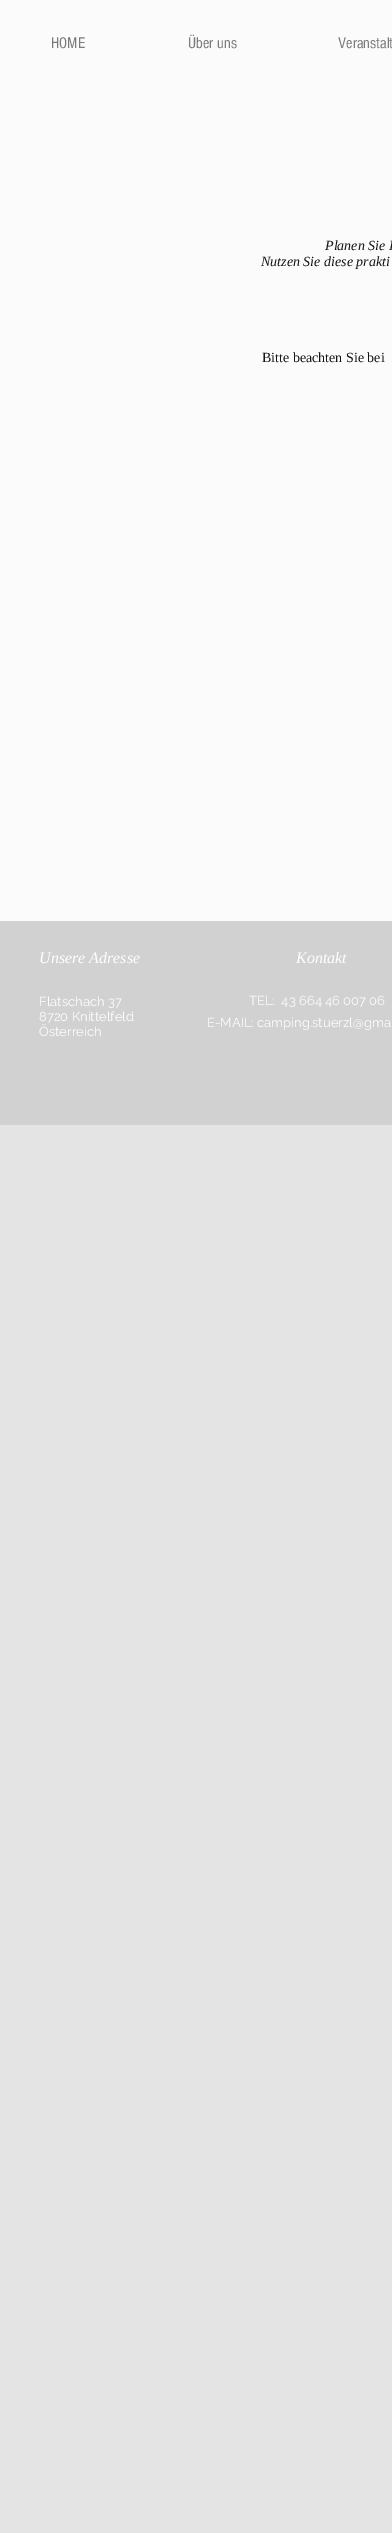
%!PS-Adobe-3.0
%%BoundingBox: 0 0 392 2533
%%LanguageLevel: 3
%%Pages: 1
%%EndComments
%%BeginProlog
/setink { 3 { 255 div 3 1 roll } repeat setrgbcolor } def
/usefont { [ exch dup neg 0 0 3 -1 roll 0 0 ] selectfont } def
/drawtext { setink usefont moveto show } def
/fillbox { setink rectfill } def
%%EndProlog
%%BeginSetup
<< /PageSize [392 2533] >> setpagedevice
%%EndSetup
%%Page: 1 1
0 2533 translate 1 -1 scale
4 setmiterlimit
0 0 392 2533 228 228 228 fillbox
0 0 392 921 251 251 251 fillbox
(HOME) 51 48 /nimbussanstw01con-Regular 16 125 121 121 drawtext
(Über uns) 188 48 /nimbussanstw01con-Regular 16 125 121 121 drawtext
(Veranstalt) 338 48 /nimbussanstw01con-Regular 16 125 121 121 drawtext
(Planen Sie I) 325 250 /LiberationSerif-Italic 14 20 20 20 drawtext
(Nutzen Sie diese prakti) 261 266 /LiberationSerif-Italic 14 20 20 20 drawtext
(Bitte beachten Sie bei) 262 362 /LiberationSerif-Regular 14 20 20 20 drawtext
0 921 392 204 209 209 209 fillbox
(Unsere Adresse) 39 963 /LiberationSerif-Italic 16 255 255 255 drawtext
(Kontakt) 296 963 /LiberationSerif-Italic 16 255 255 255 drawtext
(Flatschach 37) 39 1006 /Raleway-Regular 13 255 255 255 drawtext
(8720 Knittelfeld) 39 1021 /Raleway-Regular 13 255 255 255 drawtext
(Österreich) 39 1036 /Raleway-Regular 13 255 255 255 drawtext
(TEL:  43 664 46 007 06) 249 1005 /Raleway-Regular 13 255 255 255 drawtext
(E-MAIL: camping.stuerzl@gma) 207 1027 /Raleway-Regular 13 255 255 255 drawtext
showpage
%%EOF
